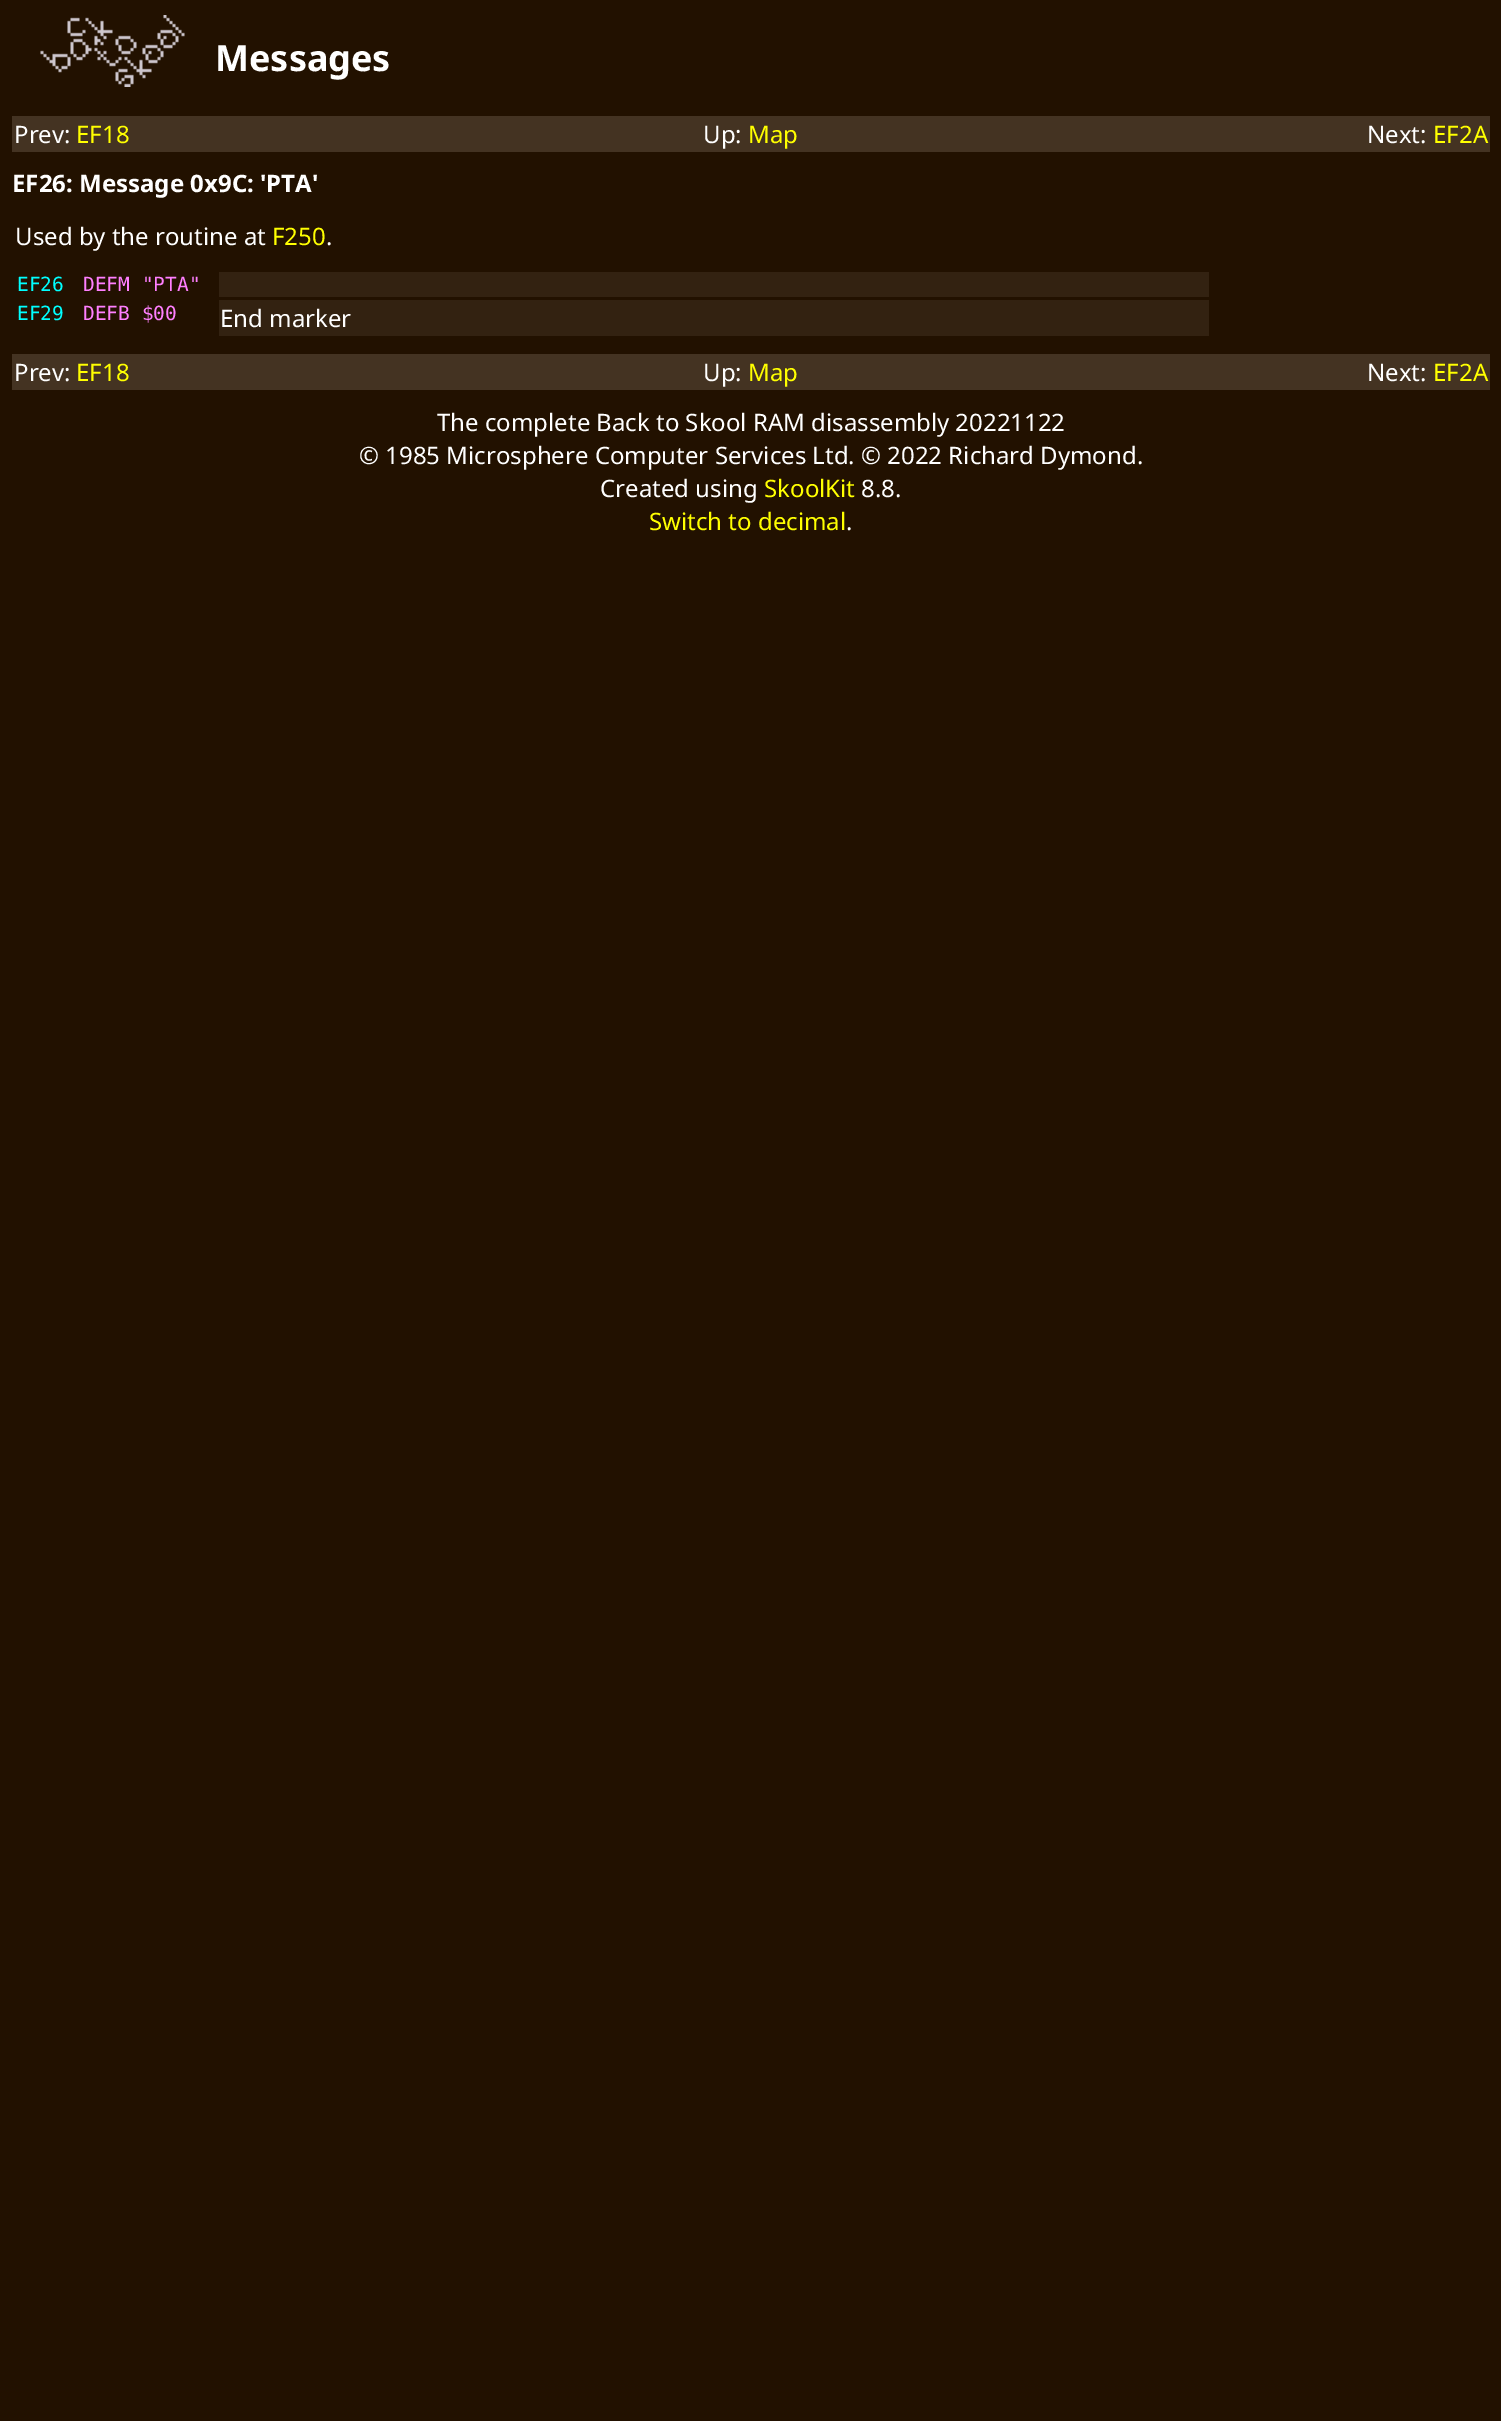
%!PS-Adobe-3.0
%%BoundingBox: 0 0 1501 2421
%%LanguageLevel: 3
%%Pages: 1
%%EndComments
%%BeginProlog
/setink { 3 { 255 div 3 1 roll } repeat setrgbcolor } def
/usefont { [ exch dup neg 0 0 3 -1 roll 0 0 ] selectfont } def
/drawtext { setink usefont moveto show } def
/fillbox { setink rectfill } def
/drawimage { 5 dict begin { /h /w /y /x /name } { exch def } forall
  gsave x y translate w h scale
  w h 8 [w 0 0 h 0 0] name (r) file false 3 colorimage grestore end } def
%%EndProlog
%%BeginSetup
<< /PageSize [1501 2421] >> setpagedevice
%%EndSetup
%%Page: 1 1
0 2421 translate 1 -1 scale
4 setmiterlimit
0 0 1501 2421 34 17 0 fillbox
(assets/img1.rgb) 40 15 145 72 drawimage
(Messages) 215 71 /NotoSans-Bold 36 255 255 255 drawtext
12 116 1478 36 68 51 34 fillbox
(Prev:) 14 143 /NotoSans-Regular 24 255 255 255 drawtext
(EF18) 76 143 /NotoSans-Regular 24 255 255 0 drawtext
(Up:) 703 143 /NotoSans-Regular 24 255 255 255 drawtext
(Map) 748 143 /NotoSans-Regular 24 255 255 0 drawtext
(Next:) 1367 143 /NotoSans-Regular 24 255 255 255 drawtext
(EF2A) 1433 143 /NotoSans-Regular 24 255 255 0 drawtext
(EF26: Message 0x9C: 'PTA') 12 192 /NotoSans-Bold 24 255 255 255 drawtext
(Used by the routine at) 15 245 /NotoSans-Regular 24 255 255 255 drawtext
(F250) 272 245 /NotoSans-Regular 24 255 255 0 drawtext
(.) 326 245 /NotoSans-Regular 24 255 255 255 drawtext
(EF26) 17 291 /DejaVuSansMono-Regular 19.5 0 255 255 drawtext
(DEFM "PTA") 83 291 /DejaVuSansMono-Regular 19.5 255 127 255 drawtext
219 272 990 25 51 34 17 fillbox
(EF29) 17 320 /DejaVuSansMono-Regular 19.5 0 255 255 drawtext
(DEFB $00) 83 320 /DejaVuSansMono-Regular 19.5 255 127 255 drawtext
219 300 990 36 51 34 17 fillbox
(End marker) 220 327 /NotoSans-Regular 24 255 255 255 drawtext
12 354 1478 36 68 51 34 fillbox
(Prev:) 14 381 /NotoSans-Regular 24 255 255 255 drawtext
(EF18) 76 381 /NotoSans-Regular 24 255 255 0 drawtext
(Up:) 703 381 /NotoSans-Regular 24 255 255 255 drawtext
(Map) 748 381 /NotoSans-Regular 24 255 255 0 drawtext
(Next:) 1367 381 /NotoSans-Regular 24 255 255 255 drawtext
(EF2A) 1433 381 /NotoSans-Regular 24 255 255 0 drawtext
(The complete Back to Skool RAM disassembly 20221122) 437 431 /NotoSans-Regular 24 255 255 255 drawtext
(© 1985 Microsphere Computer Services Ltd. © 2022 Richard Dymond.) 359 464 /NotoSans-Regular 24 255 255 255 drawtext
(Created using) 600 497 /NotoSans-Regular 24 255 255 255 drawtext
(SkoolKit) 764 497 /NotoSans-Regular 24 255 255 0 drawtext
(8.8.) 861 497 /NotoSans-Regular 24 255 255 255 drawtext
(Switch to decimal) 649 530 /NotoSans-Regular 24 255 255 0 drawtext
(.) 846 530 /NotoSans-Regular 24 255 255 255 drawtext
showpage
%%EOF
